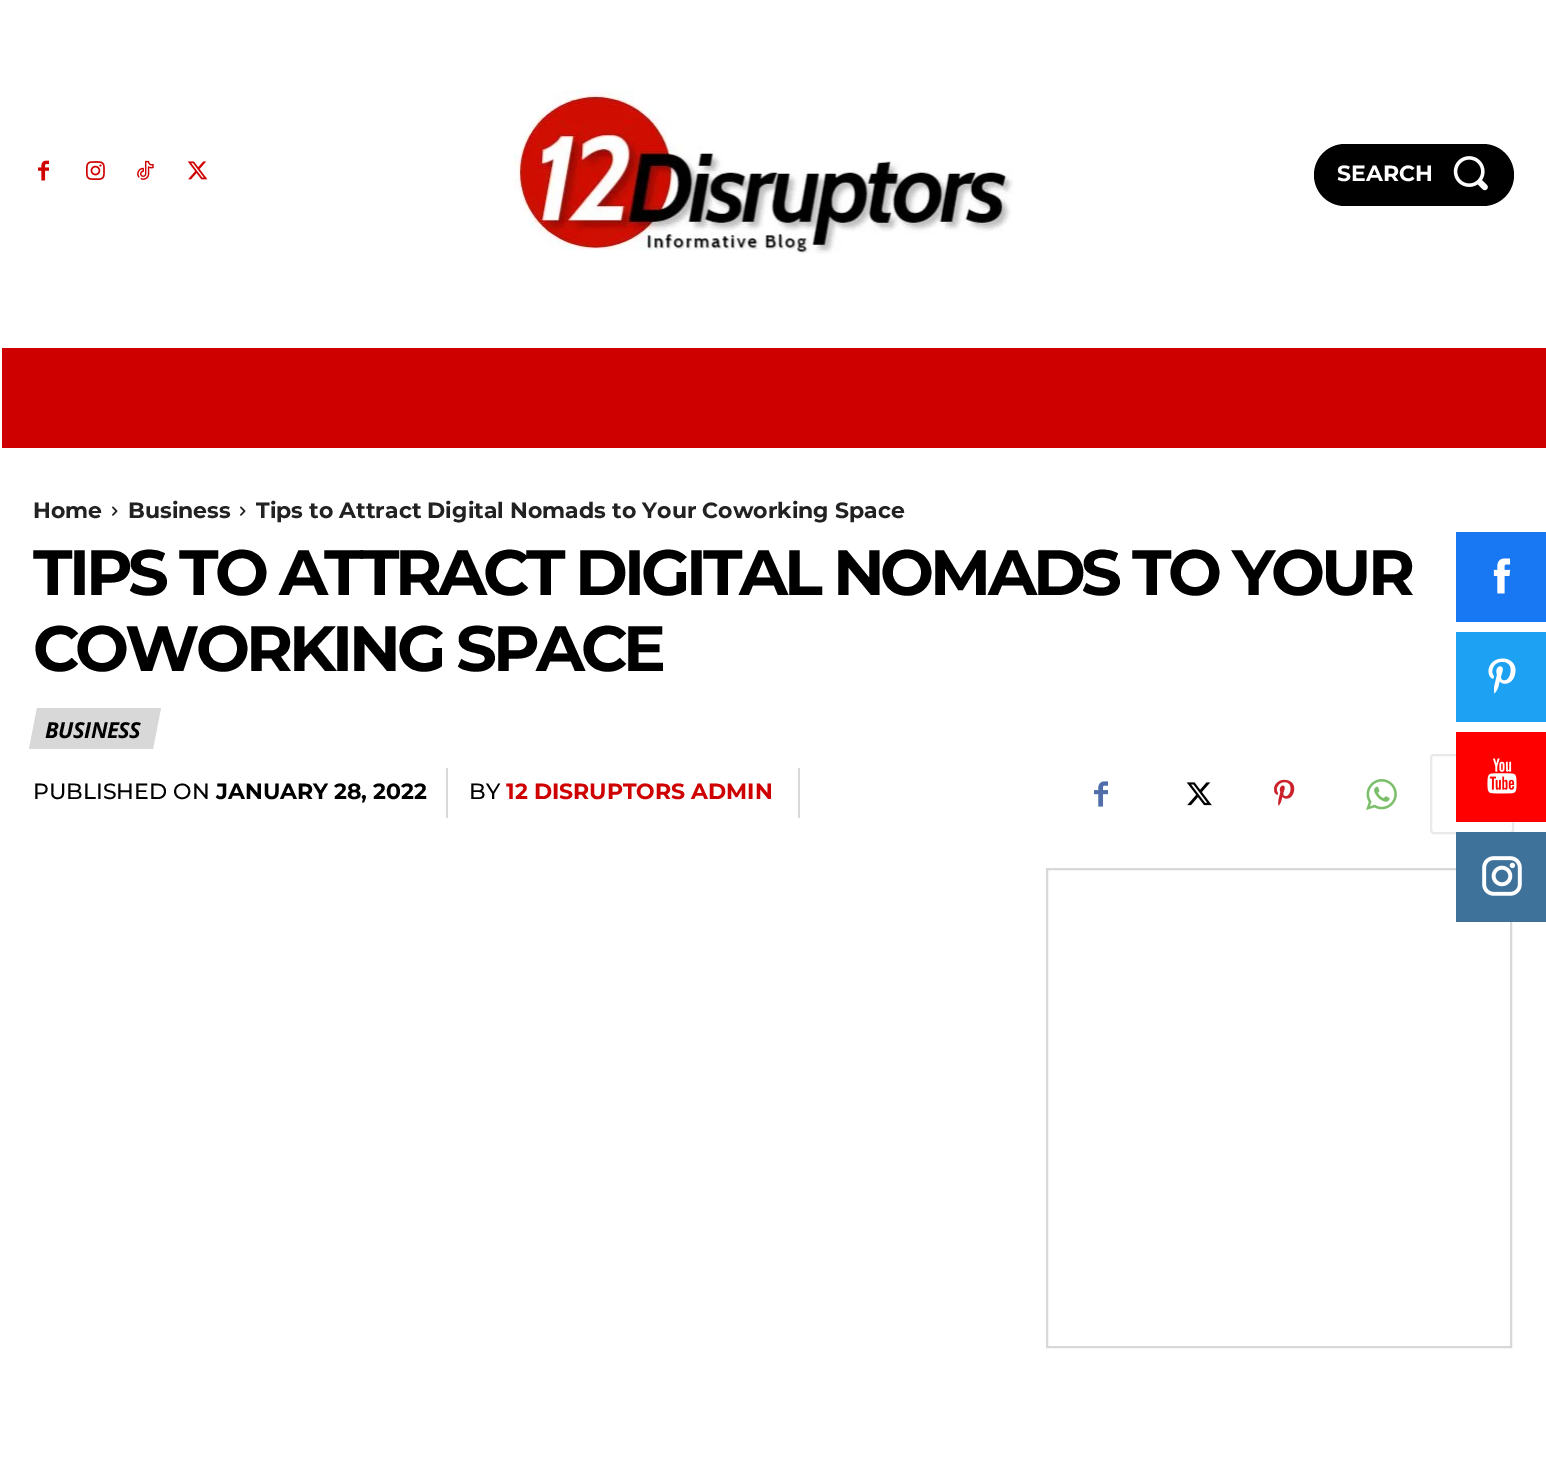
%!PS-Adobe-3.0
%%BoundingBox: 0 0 1546 1462
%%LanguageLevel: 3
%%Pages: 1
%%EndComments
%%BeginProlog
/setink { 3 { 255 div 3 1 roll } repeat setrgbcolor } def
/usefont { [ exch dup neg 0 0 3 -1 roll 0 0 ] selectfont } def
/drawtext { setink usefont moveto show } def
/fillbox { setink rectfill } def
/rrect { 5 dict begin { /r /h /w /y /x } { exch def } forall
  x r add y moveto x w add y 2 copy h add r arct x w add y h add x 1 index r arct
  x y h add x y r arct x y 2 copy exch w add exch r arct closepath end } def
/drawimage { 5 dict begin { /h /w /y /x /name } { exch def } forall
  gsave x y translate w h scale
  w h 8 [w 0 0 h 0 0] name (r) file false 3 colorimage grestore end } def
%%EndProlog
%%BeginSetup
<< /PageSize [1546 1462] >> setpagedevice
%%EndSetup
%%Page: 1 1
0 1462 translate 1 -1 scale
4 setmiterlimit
0 0 1546 1462 255 255 255 fillbox
(assets/img1.rgb) 38 160 11 21 drawimage
(assets/img2.rgb) 86 161 19 19 drawimage
(assets/img3.rgb) 137 160 17 20 drawimage
(assets/img4.rgb) 187 161 21 19 drawimage
(assets/img5.rgb) 513 90 500 164 drawimage
0 0 0 setink
1314 144 200 62 31 rrect fill
(SEARCH) 1337 181 /Montserrat-Bold 22 255 255 255 drawtext
(assets/img6.rgb) 1453 156 35 35 drawimage
2 348 1544 100 206 0 0 fillbox
(Home) 33 518 /Montserrat-Bold 22 34 34 34 drawtext
(assets/img7.rgb) 112 506 6 10 drawimage
(Business) 128 518 /Montserrat-Bold 22 34 34 34 drawtext
(assets/img7.rgb) 240 506 6 10 drawimage
(Tips to Attract Digital Nomads to Your Coworking Space) 256 518 /Montserrat-Bold 22 34 34 34 drawtext
/Montserrat-Bold 64 usefont
0 0 0 setink
33 595 moveto -4 0 (TIPS TO ATTRACT DIGITAL NOMADS TO YOUR) ashow
33 671 moveto -4 0 (COWORKING SPACE) ashow
216 216 216 setink
37 708 moveto 161 708 lineto 153 749 lineto 29 749 lineto closepath fill
/OpenSans-BoldItalic 22 usefont
0 0 0 setink
45 738 moveto -0.5 0 (BUSINESS) ashow
446 768 2 50 216 216 216 fillbox
(PUBLISHED ON) 33 799 /Montserrat-Medium 22 0 0 0 drawtext
(JANUARY 28, 2022) 216 799 /Montserrat-Bold 22 0 0 0 drawtext
798 768 2 50 216 216 216 fillbox
(BY) 469 799 /Montserrat-Medium 22 0 0 0 drawtext
(12 DISRUPTORS ADMIN) 506 799 /Montserrat-Bold 22 206 0 0 drawtext
(assets/img8.rgb) 1094 781 14 26 drawimage
(assets/img9.rgb) 1186 782 26 24 drawimage
(assets/img10.rgb) 1274 779 21 27 drawimage
(assets/img11.rgb) 1366 779 31 31 drawimage
233 233 233 setink
2 setlinewidth
1431 755 82 78 3 rrect stroke
216 216 216 setink
1047 869 464 478 rectstroke
1456 532 90 90 24 119 242 fillbox
(assets/img12.rgb) 1493 558 18 36 drawimage
1456 632 90 90 29 161 242 fillbox
(assets/img13.rgb) 1488 658 28 36 drawimage
1456 732 90 90 255 0 0 fillbox
(assets/img14.rgb) 1487 758 30 36 drawimage
1456 832 90 90 63 114 155 fillbox
(assets/img15.rgb) 1482 856 40 40 drawimage
showpage
%%EOF
